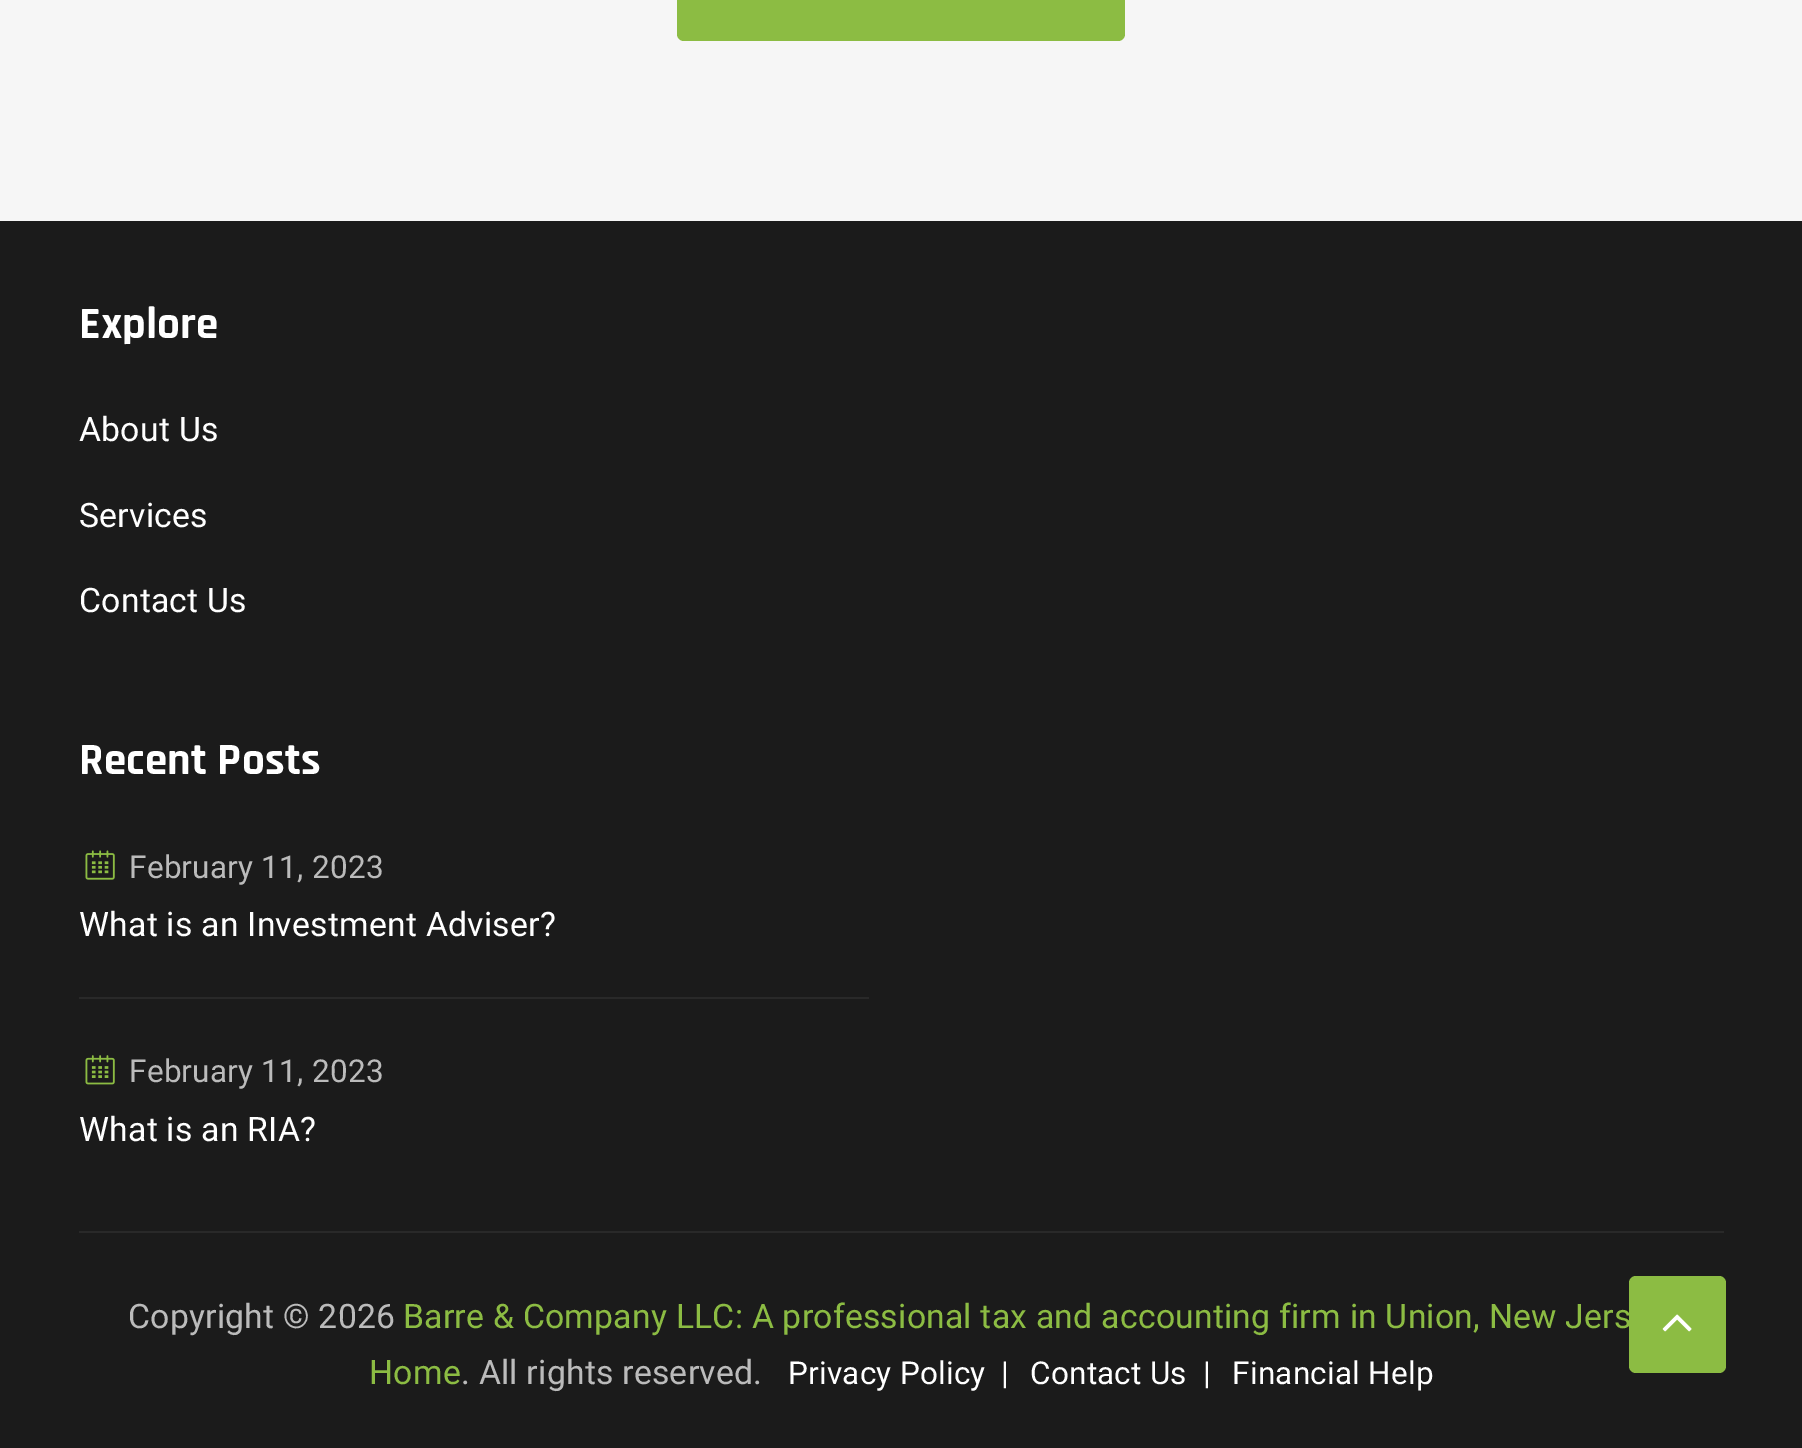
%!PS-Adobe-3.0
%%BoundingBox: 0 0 1802 1448
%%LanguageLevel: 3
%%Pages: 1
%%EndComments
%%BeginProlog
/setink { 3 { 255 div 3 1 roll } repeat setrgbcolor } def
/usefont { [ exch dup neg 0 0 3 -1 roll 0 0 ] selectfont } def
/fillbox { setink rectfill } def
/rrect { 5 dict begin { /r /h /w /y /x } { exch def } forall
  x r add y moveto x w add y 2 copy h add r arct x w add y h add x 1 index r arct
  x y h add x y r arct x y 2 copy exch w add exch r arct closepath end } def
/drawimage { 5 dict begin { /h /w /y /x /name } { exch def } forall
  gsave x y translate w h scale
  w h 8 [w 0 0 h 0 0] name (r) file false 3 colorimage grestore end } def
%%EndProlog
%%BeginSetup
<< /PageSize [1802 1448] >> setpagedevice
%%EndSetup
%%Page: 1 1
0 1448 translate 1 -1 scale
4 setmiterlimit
0 0 1802 1448 246 246 246 fillbox
140 188 67 setink
677 -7 448 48 7 rrect fill
0 221 1802 1227 27 27 27 fillbox
79 1231 1645 2 41 41 41 fillbox
/Rajdhani-Bold 45 usefont
255 255 255 setink
79 338 moveto 0.23 0 (Explore) ashow
/Roboto-Regular 33.75 usefont
79 441 moveto 0.23 0 (About Us) ashow
79 527 moveto 0.23 0 (Services) ashow
79 612 moveto 0.23 0 (Contact Us) ashow
/Rajdhani-Bold 45 usefont
79 774 moveto 0.23 0 (Recent Posts) ashow
79 997 790 2 41 41 41 fillbox
(assets/img1.rgb) 85 850 30 30 drawimage
/Roboto-Regular 31.5 usefont
187 187 187 setink
129 878 moveto 0.23 0 (February 11, 2023) ashow
/Roboto-Regular 33.75 usefont
255 255 255 setink
79 936 moveto 0.23 0 (What is an Investment Adviser?) ashow
(assets/img2.rgb) 85 1055 30 30 drawimage
/Roboto-Regular 31.5 usefont
187 187 187 setink
129 1082 moveto 0.23 0 (February 11, 2023) ashow
/Roboto-Regular 33.75 usefont
255 255 255 setink
79 1141 moveto 0.23 0 (What is an RIA?) ashow
187 187 187 setink
128 1328 moveto 0.23 0 (Copyright © 2026) ashow
140 188 67 setink
403 1328 moveto 0.23 0 (Barre & Company LLC: A professional tax and accounting firm in Union, New Jers) ashow
369 1384 moveto 0.23 0 (Home) ashow
187 187 187 setink
461 1384 moveto 0.23 0 (. All rights reserved.) ashow
/Roboto-Regular 31.5 usefont
255 255 255 setink
788 1384 moveto 0.23 0 (Privacy Policy) ashow
1001 1384 moveto 0.23 0 (|) ashow
1030 1384 moveto 0.23 0 (Contact Us) ashow
1203 1384 moveto 0.23 0 (|) ashow
1232 1384 moveto 0.23 0 (Financial Help) ashow
140 188 67 setink
1629 1276 97 97 7 rrect fill
(assets/img3.rgb) 1662 1314 30 18 drawimage
showpage
%%EOF
